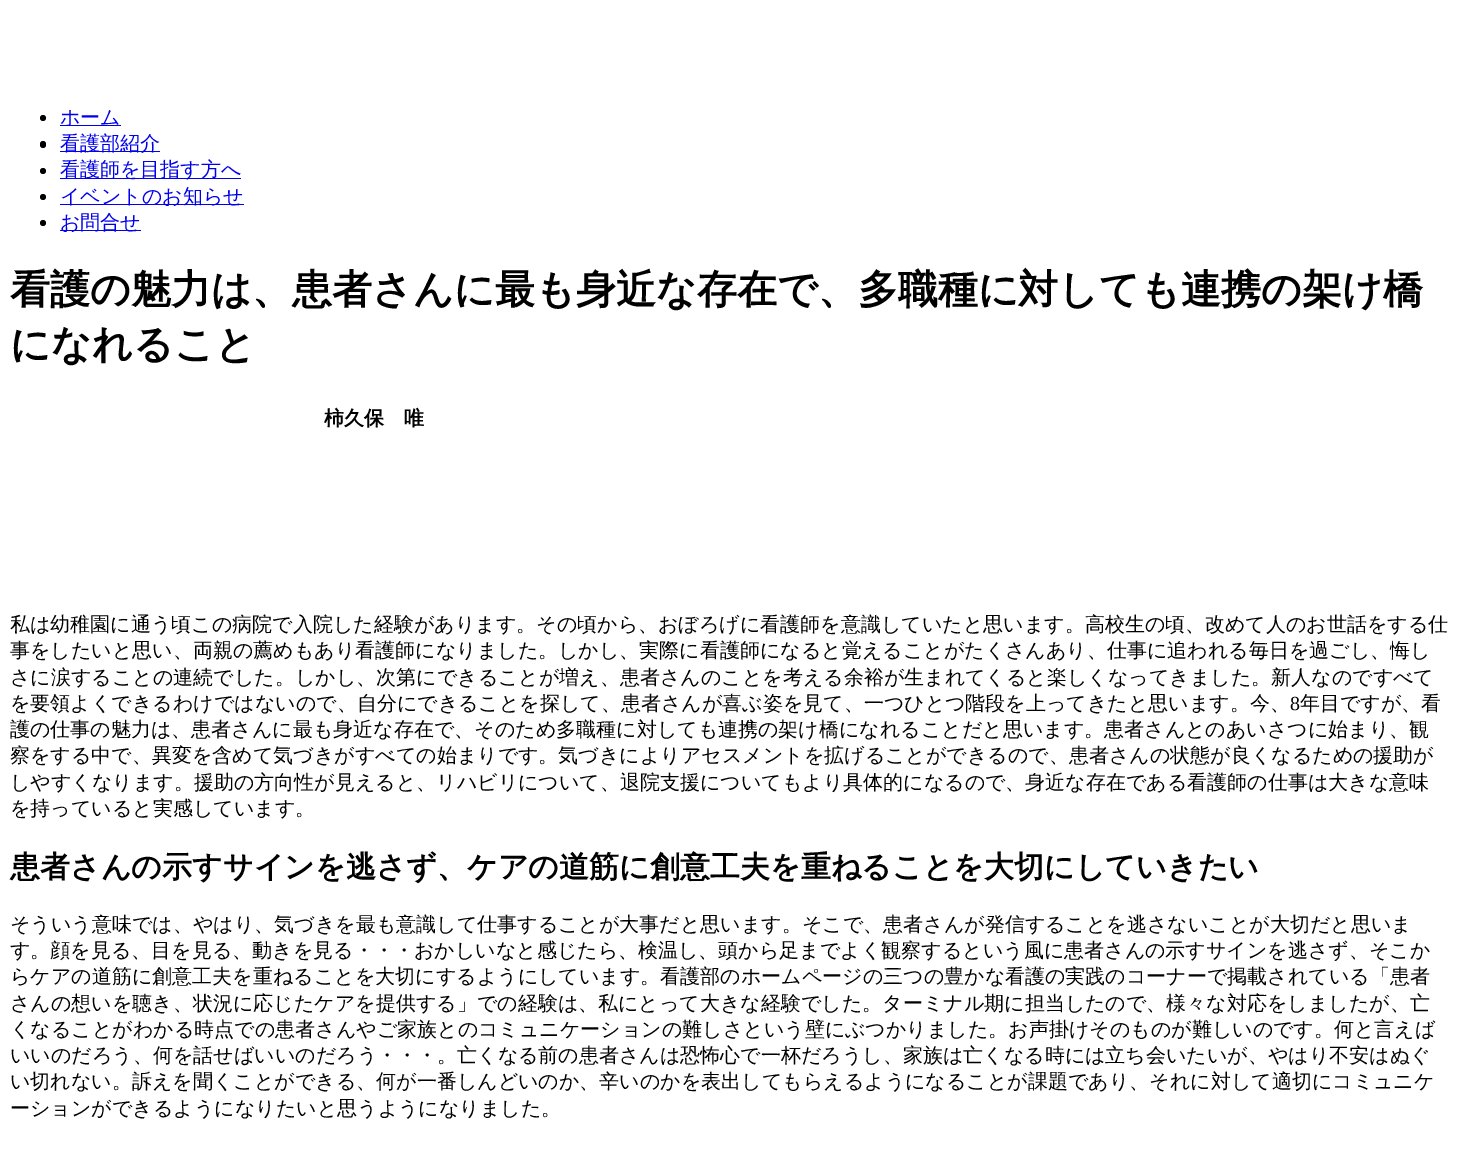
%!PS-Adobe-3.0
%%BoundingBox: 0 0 1458 1150
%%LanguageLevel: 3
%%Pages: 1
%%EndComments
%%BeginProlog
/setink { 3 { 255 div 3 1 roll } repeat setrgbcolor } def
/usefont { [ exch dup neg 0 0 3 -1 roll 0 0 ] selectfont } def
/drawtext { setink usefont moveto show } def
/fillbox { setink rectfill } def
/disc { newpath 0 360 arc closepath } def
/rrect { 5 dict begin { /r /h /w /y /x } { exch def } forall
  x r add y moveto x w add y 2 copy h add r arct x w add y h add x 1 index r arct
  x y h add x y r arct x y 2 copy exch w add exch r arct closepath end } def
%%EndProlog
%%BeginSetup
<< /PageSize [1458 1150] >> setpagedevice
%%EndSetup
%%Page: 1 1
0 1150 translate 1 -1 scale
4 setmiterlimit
0 0 1458 1150 255 255 255 fillbox
0 0 0 setink
43 118 3 disc fill
60 125 61 1 0 0 238 fillbox
(ホーム) 60 124 /WenQuanYiZenHei-Medium 20 0 0 238 drawtext
0 0 0 setink
40 141 6 7 3 rrect fill
60 151 100 1 0 0 238 fillbox
(看護部紹介) 60 150 /WenQuanYiZenHei-Medium 20 0 0 238 drawtext
0 0 0 setink
43 171 3 disc fill
60 178 181 1 0 0 238 fillbox
(看護師を目指す方へ) 60 176 /WenQuanYiZenHei-Medium 20 0 0 238 drawtext
0 0 0 setink
43 197 3 disc fill
60 204 184 1 0 0 238 fillbox
(イベントのお知らせ) 60 203 /WenQuanYiZenHei-Medium 20 0 0 238 drawtext
0 0 0 setink
43 223 3 disc fill
60 230 81 1 0 0 238 fillbox
(お問合せ) 60 229 /WenQuanYiZenHei-Medium 20 0 0 238 drawtext
(看護の魅力は、患者さんに最も身近な存在で、多職種に対しても連携の架け橋) 10 303 /WenQuanYiZenHei-Bold 40 0 0 0 drawtext
(になれること) 10 358 /WenQuanYiZenHei-Bold 40 0 0 0 drawtext
(柿久保　唯) 324 425 /WenQuanYiZenHei-Bold 20 0 0 0 drawtext
(私は幼稚園に通う頃この病院で入院した経験があります。その頃から、おぼろげに看護師を意識していたと思います。高校生の頃、改めて人のお世話をする仕) 10 631 /WenQuanYiZenHei-Medium 20 0 0 0 drawtext
(事をしたいと思い、両親の薦めもあり看護師になりました。しかし、実際に看護師になると覚えることがたくさんあり、仕事に追われる毎日を過ごし、悔し) 10 657 /WenQuanYiZenHei-Medium 20 0 0 0 drawtext
(さに涙することの連続でした。しかし、次第にできることが増え、患者さんのことを考える余裕が生まれてくると楽しくなってきました。新人なのですべて) 10 684 /WenQuanYiZenHei-Medium 20 0 0 0 drawtext
(を要領よくできるわけではないので、自分にできることを探して、患者さんが喜ぶ姿を見て、一つひとつ階段を上ってきたと思います。今、) 10 710 /WenQuanYiZenHei-Medium 20 0 0 0 drawtext
(8) 1290 710 /LiberationSerif-Regular 20 0 0 0 drawtext
(年目ですが、看) 1300 710 /WenQuanYiZenHei-Medium 20 0 0 0 drawtext
(護の仕事の魅力は、患者さんに最も身近な存在で、そのため多職種に対しても連携の架け橋になれることだと思います。患者さんとのあいさつに始まり、観) 10 736 /WenQuanYiZenHei-Medium 20 0 0 0 drawtext
(察をする中で、異変を含めて気づきがすべての始まりです。気づきによりアセスメントを拡げることができるので、患者さんの状態が良くなるための援助が) 10 762 /WenQuanYiZenHei-Medium 20 0 0 0 drawtext
(しやすくなります。援助の方向性が見えると、リハビリについて、退院支援についてもより具体的になるので、身近な存在である看護師の仕事は大きな意味) 10 789 /WenQuanYiZenHei-Medium 20 0 0 0 drawtext
(を持っていると実感しています。) 10 815 /WenQuanYiZenHei-Medium 20 0 0 0 drawtext
(患者さんの示すサインを逃さず、ケアの道筋に創意工夫を重ねることを大切にしていきたい) 10 877 /WenQuanYiZenHei-Bold 30 0 0 0 drawtext
(そういう意味では、やはり、気づきを最も意識して仕事することが大事だと思います。そこで、患者さんが発信することを逃さないことが大切だと思いま) 10 931 /WenQuanYiZenHei-Medium 20 0 0 0 drawtext
(す。顔を見る、目を見る、動きを見る・・・おかしいなと感じたら、検温し、頭から足までよく観察するという風に患者さんの示すサインを逃さず、そこか) 10 957 /WenQuanYiZenHei-Medium 20 0 0 0 drawtext
(らケアの道筋に創意工夫を重ねることを大切にするようにしています。看護部のホームページの三つの豊かな看護の実践のコーナーで掲載されている「患者) 10 983 /WenQuanYiZenHei-Medium 20 0 0 0 drawtext
(さんの想いを聴き、状況に応じたケアを提供する」での経験は、私にとって大きな経験でした。ターミナル期に担当したので、様々な対応をしましたが、亡) 10 1010 /WenQuanYiZenHei-Medium 20 0 0 0 drawtext
(くなることがわかる時点での患者さんやご家族とのコミュニケーションの難しさという壁にぶつかりました。お声掛けそのものが難しいのです。何と言えば) 10 1036 /WenQuanYiZenHei-Medium 20 0 0 0 drawtext
(いいのだろう、何を話せばいいのだろう・・・。亡くなる前の患者さんは恐怖心で一杯だろうし、家族は亡くなる時には立ち会いたいが、やはり不安はぬぐ) 10 1062 /WenQuanYiZenHei-Medium 20 0 0 0 drawtext
(い切れない。訴えを聞くことができる、何が一番しんどいのか、辛いのかを表出してもらえるようになることが課題であり、それに対して適切にコミュニケ) 10 1088 /WenQuanYiZenHei-Medium 20 0 0 0 drawtext
(ーションができるようになりたいと思うようになりました。) 10 1115 /WenQuanYiZenHei-Medium 20 0 0 0 drawtext
showpage
%%EOF
